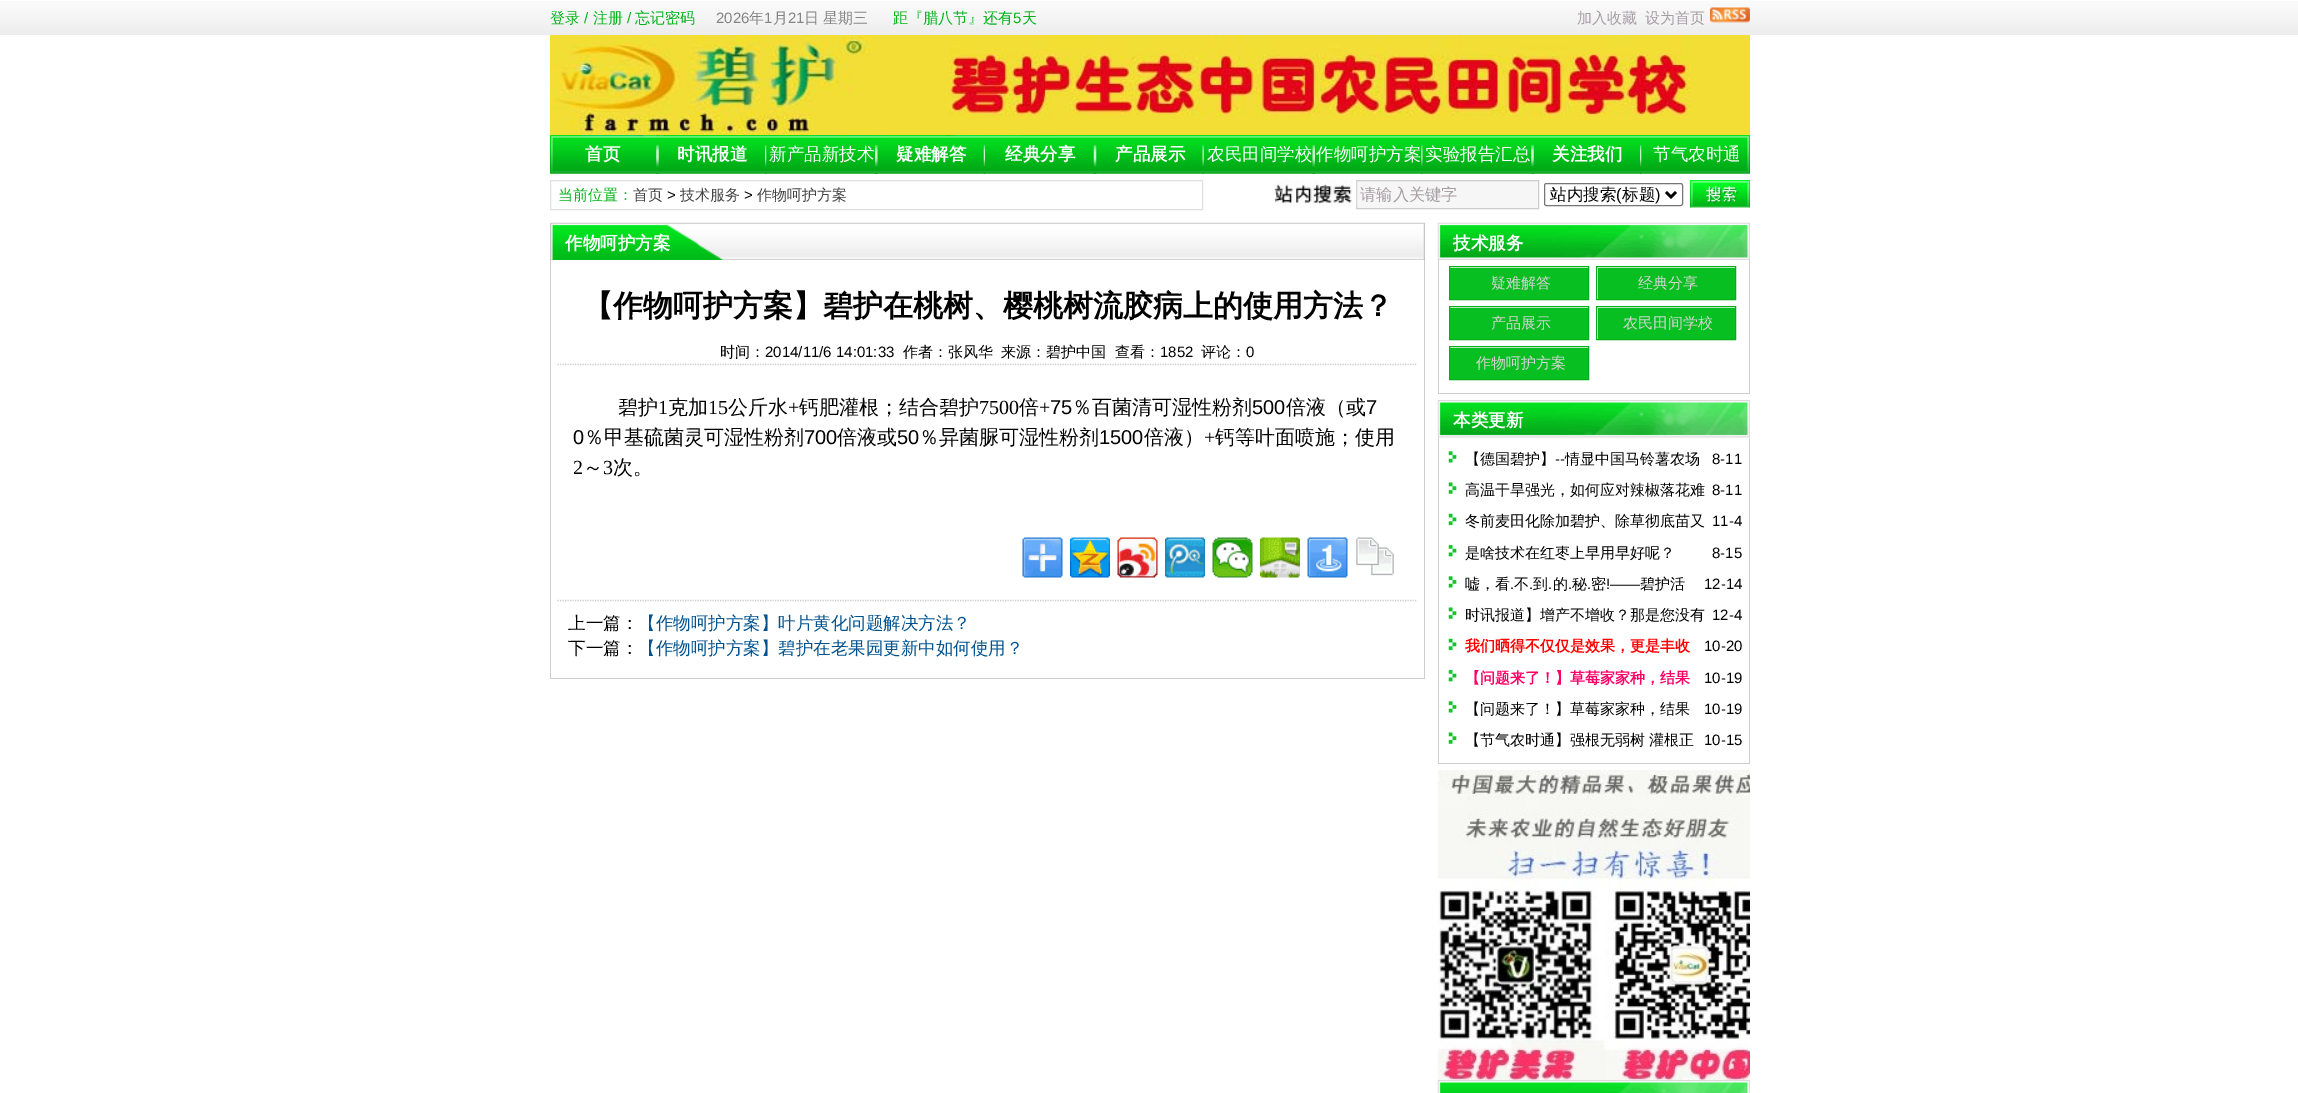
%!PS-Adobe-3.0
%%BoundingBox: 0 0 2298 1093
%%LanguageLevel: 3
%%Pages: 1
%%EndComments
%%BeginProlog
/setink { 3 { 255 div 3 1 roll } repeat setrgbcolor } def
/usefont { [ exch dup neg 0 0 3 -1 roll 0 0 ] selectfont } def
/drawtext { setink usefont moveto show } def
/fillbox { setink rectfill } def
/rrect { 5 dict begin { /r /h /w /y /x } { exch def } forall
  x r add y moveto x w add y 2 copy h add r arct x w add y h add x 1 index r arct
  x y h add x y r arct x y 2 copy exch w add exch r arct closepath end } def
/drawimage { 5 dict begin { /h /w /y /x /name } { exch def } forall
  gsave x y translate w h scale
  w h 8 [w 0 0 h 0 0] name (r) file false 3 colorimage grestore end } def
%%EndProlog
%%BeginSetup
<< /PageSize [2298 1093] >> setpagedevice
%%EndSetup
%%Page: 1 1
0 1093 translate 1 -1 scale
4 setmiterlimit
0 0 2298 1093 255 255 255 fillbox
(assets/img1.rgb) 0 1 2298 34 drawimage
(登录) 550 23 /WenQuanYiZenHei-Medium 15 2 179 26 drawtext
(/) 584 23 /LiberationSans-Regular 15 2 179 26 drawtext
(注册) 593 23 /WenQuanYiZenHei-Medium 15 2 179 26 drawtext
(/) 627 23 /LiberationSans-Regular 15 2 179 26 drawtext
(忘记密码) 635 23 /WenQuanYiZenHei-Medium 15 2 179 26 drawtext
(2026) 716 23 /LiberationSans-Regular 15 132 132 132 drawtext
(年) 749 23 /WenQuanYiZenHei-Medium 15 132 132 132 drawtext
(1) 764 23 /LiberationSans-Regular 15 132 132 132 drawtext
(月) 773 23 /WenQuanYiZenHei-Medium 15 132 132 132 drawtext
(21) 788 23 /LiberationSans-Regular 15 132 132 132 drawtext
(日) 804 23 /WenQuanYiZenHei-Medium 15 132 132 132 drawtext
(星期三) 823 23 /WenQuanYiZenHei-Medium 15 132 132 132 drawtext
(距『腊八节』还有) 893 23 /WenQuanYiZenHei-Medium 15 2 179 26 drawtext
(5) 1013 23 /LiberationSans-Regular 15 2 179 26 drawtext
(天) 1022 23 /WenQuanYiZenHei-Medium 15 2 179 26 drawtext
(加入收藏) 1577 23 /WenQuanYiZenHei-Medium 15 165 158 163 drawtext
(设为首页) 1645 23 /WenQuanYiZenHei-Medium 15 165 158 163 drawtext
(assets/img2.rgb) 1710 7 40 16 drawimage
(assets/img3.rgb) 550 35 1200 100 drawimage
(assets/img4.rgb) 550 135 1200 39 drawimage
(首页) 585 160 /WenQuanYiZenHei-Bold 17.5 255 255 255 drawtext
(assets/img5.rgb) 656 135 3 39 drawimage
(时讯报道) 677 160 /WenQuanYiZenHei-Bold 17.5 255 255 255 drawtext
(assets/img6.rgb) 765 145 2 29 drawimage
(新产品新技术) 769 160 /WenQuanYiZenHei-Medium 17.5 255 255 255 drawtext
(assets/img7.rgb) 875 135 3 39 drawimage
(疑难解答) 896 160 /WenQuanYiZenHei-Bold 17.5 255 255 255 drawtext
(assets/img8.rgb) 983 135 2 39 drawimage
(经典分享) 1005 160 /WenQuanYiZenHei-Bold 17.5 255 255 255 drawtext
(assets/img9.rgb) 1093 145 4 29 drawimage
(产品展示) 1115 160 /WenQuanYiZenHei-Bold 17.5 255 255 255 drawtext
(assets/img10.rgb) 1202 145 2 29 drawimage
(农民田间学校) 1207 160 /WenQuanYiZenHei-Medium 17.5 255 255 255 drawtext
(assets/img11.rgb) 1312 145 3 29 drawimage
(作物呵护方案) 1316 160 /WenQuanYiZenHei-Medium 17.5 255 255 255 drawtext
(assets/img12.rgb) 1421 145 2 29 drawimage
(实验报告汇总) 1425 160 /WenQuanYiZenHei-Medium 17.5 255 255 255 drawtext
(assets/img13.rgb) 1531 145 3 29 drawimage
(关注我们) 1552 160 /WenQuanYiZenHei-Bold 17.5 255 255 255 drawtext
(assets/img6.rgb) 1640 145 2 29 drawimage
(节气农时通) 1653 160 /WenQuanYiZenHei-Medium 17.5 255 255 255 drawtext
224 224 224 setink
550.5 180.5 652 29 rectstroke
(当前位置：) 558 200 /WenQuanYiZenHei-Medium 15 2 179 26 drawtext
(首页) 633 200 /WenQuanYiZenHei-Medium 15 68 68 68 drawtext
(>) 667 200 /LiberationSans-Regular 15 0 0 0 drawtext
(技术服务) 680 200 /WenQuanYiZenHei-Medium 15 68 68 68 drawtext
(>) 744 200 /LiberationSans-Regular 15 0 0 0 drawtext
(作物呵护方案) 757 200 /WenQuanYiZenHei-Medium 15 68 68 68 drawtext
246 246 246 setink
1356.5 180.5 moveto 1538.5 180.5 lineto 1538.5 208.5 lineto 1356.5 208.5 lineto closepath gsave fill grestore
204 204 204 setink
stroke
(assets/img14.rgb) 1274 180 83 26 drawimage
(请输入关键字) 1360 200 /WenQuanYiZenHei-Medium 16.25 165 158 163 drawtext
118 118 118 setink
1544.5 183.5 138 22 2 rrect stroke
0 0 0 setink
2.5 setlinewidth
1666 192 moveto 1671 197 lineto 1676 192 lineto stroke
(站内搜索) 1550 200 /WenQuanYiZenHei-Medium 16.5 0 0 0 drawtext
(\() 1616 200 /LiberationSans-Regular 16.5 0 0 0 drawtext
(标题) 1622 200 /WenQuanYiZenHei-Medium 16.5 0 0 0 drawtext
(\)) 1655 200 /LiberationSans-Regular 16.5 0 0 0 drawtext
(assets/img15.rgb) 1690 180 60 28 drawimage
(assets/img16.rgb) 550 222 875 38 drawimage
(作物呵护方案) 565 249 /WenQuanYiZenHei-Bold 17.5 255 255 255 drawtext
1424 260 1 419 206 206 206 fillbox
550 678 875 1 206 206 206 fillbox
550 260 1 419 206 206 206 fillbox
204 204 204 setink
1.2 setlinewidth
[1.25 1.25] 0 setdash
557.5 364.5 moveto 1417.5 364.5 lineto stroke
(【作物呵护方案】碧护在桃树、樱桃树流胶病上的使用方法？) 583 316 /WenQuanYiZenHei-Bold 30 0 0 0 drawtext
(时间：) 720 357 /WenQuanYiZenHei-Medium 15 0 0 0 drawtext
(2014/11/6 14:01:33) 765 357 /LiberationSans-Regular 15 0 0 0 drawtext
(作者：张风华) 903 357 /WenQuanYiZenHei-Medium 15 0 0 0 drawtext
(来源：碧护中国) 1001 357 /WenQuanYiZenHei-Medium 15 0 0 0 drawtext
(查看：) 1115 357 /WenQuanYiZenHei-Medium 15 0 0 0 drawtext
(1852) 1160 357 /LiberationSans-Regular 15 0 0 0 drawtext
(评论：) 1201 357 /WenQuanYiZenHei-Medium 15 0 0 0 drawtext
(0) 1246 357 /LiberationSans-Regular 15 0 0 0 drawtext
204 204 204 setink
557.5 600.5 moveto 1417.5 600.5 lineto stroke
(碧护) 618 414 /WenQuanYiZenHei-Medium 20 0 0 0 drawtext
(1) 658 414 /LiberationSerif-Regular 20 0 0 0 drawtext
(克加) 668 414 /WenQuanYiZenHei-Medium 20 0 0 0 drawtext
(15) 708 414 /LiberationSerif-Regular 20 0 0 0 drawtext
(公斤水) 728 414 /WenQuanYiZenHei-Medium 20 0 0 0 drawtext
(+) 788 414 /LiberationSerif-Regular 20 0 0 0 drawtext
(钙肥灌根；结合碧护) 799 414 /WenQuanYiZenHei-Medium 20 0 0 0 drawtext
(7500) 979 414 /LiberationSerif-Regular 20 0 0 0 drawtext
(倍) 1019 414 /WenQuanYiZenHei-Medium 20 0 0 0 drawtext
(+) 1039 414 /LiberationSerif-Regular 20 0 0 0 drawtext
(75) 1050 414 /LiberationSans-Regular 20 0 0 0 drawtext
(％百菌清可湿性粉剂) 1072 414 /WenQuanYiZenHei-Medium 20 0 0 0 drawtext
(500) 1252 414 /LiberationSans-Regular 20 0 0 0 drawtext
(倍液（或) 1286 414 /WenQuanYiZenHei-Medium 20 0 0 0 drawtext
(7) 1366 414 /LiberationSans-Regular 20 0 0 0 drawtext
(0) 573 444 /LiberationSans-Regular 20 0 0 0 drawtext
(％甲基硫菌灵可湿性粉剂) 584 444 /WenQuanYiZenHei-Medium 20 0 0 0 drawtext
(700) 804 444 /LiberationSans-Regular 20 0 0 0 drawtext
(倍液或) 837 444 /WenQuanYiZenHei-Medium 20 0 0 0 drawtext
(50) 897 444 /LiberationSans-Regular 20 0 0 0 drawtext
(％异菌脲可湿性粉剂) 919 444 /WenQuanYiZenHei-Medium 20 0 0 0 drawtext
(1500) 1099 444 /LiberationSans-Regular 20 0 0 0 drawtext
(倍液）) 1144 444 /WenQuanYiZenHei-Medium 20 0 0 0 drawtext
(+) 1204 444 /LiberationSerif-Regular 20 0 0 0 drawtext
(钙等叶面喷施；使用) 1215 444 /WenQuanYiZenHei-Medium 20 0 0 0 drawtext
(2) 573 474 /LiberationSerif-Regular 20 0 0 0 drawtext
(～) 583 474 /WenQuanYiZenHei-Medium 20 0 0 0 drawtext
(3) 603 474 /LiberationSerif-Regular 20 0 0 0 drawtext
(次。) 613 474 /WenQuanYiZenHei-Medium 20 0 0 0 drawtext
(assets/img17.rgb) 1022 537 41 41 drawimage
(assets/img18.rgb) 1070 537 40 41 drawimage
(assets/img19.rgb) 1117 537 41 41 drawimage
(assets/img20.rgb) 1165 537 40 41 drawimage
(assets/img21.rgb) 1212 537 41 41 drawimage
(assets/img22.rgb) 1260 537 40 41 drawimage
(assets/img23.rgb) 1307 537 41 41 drawimage
(assets/img24.rgb) 1356 537 38 39 drawimage
(上一篇：) 568 629 /WenQuanYiZenHei-Medium 17.5 0 0 0 drawtext
(【作物呵护方案】叶片黄化问题解决方法？) 638 629 /WenQuanYiZenHei-Medium 17.5 0 82 142 drawtext
(下一篇：) 568 654 /WenQuanYiZenHei-Medium 17.5 0 0 0 drawtext
(【作物呵护方案】碧护在老果园更新中如何使用？) 638 654 /WenQuanYiZenHei-Medium 17.5 0 82 142 drawtext
(assets/img25.rgb) 1437 222 313 38 drawimage
(技术服务) 1453 249 /WenQuanYiZenHei-Bold 17.5 255 255 255 drawtext
1749 260 1 134 206 206 206 fillbox
1438 393 312 1 206 206 206 fillbox
1438 260 1 134 206 206 206 fillbox
3 174 25 setink
1 setlinewidth
[] 0 setdash
1449.5 266.5 139 33 rectstroke
1450 268 138 31 7 191 32 fillbox
(疑难解答) 1491 288 /WenQuanYiZenHei-Medium 15 214 213 213 drawtext
3 174 25 setink
1596.5 266.5 139 33 rectstroke
1598 268 137 31 7 191 32 fillbox
(经典分享) 1638 288 /WenQuanYiZenHei-Medium 15 214 213 213 drawtext
3 174 25 setink
1449.5 306.5 139 33 rectstroke
1450 308 138 31 7 191 32 fillbox
(产品展示) 1491 328 /WenQuanYiZenHei-Medium 15 214 213 213 drawtext
3 174 25 setink
1596.5 306.5 139 33 rectstroke
1598 308 137 31 7 191 32 fillbox
(农民田间学校) 1623 328 /WenQuanYiZenHei-Medium 15 214 213 213 drawtext
3 174 25 setink
1449.5 346.5 139 33 rectstroke
1450 348 138 31 7 191 32 fillbox
(作物呵护方案) 1476 368 /WenQuanYiZenHei-Medium 15 214 213 213 drawtext
(assets/img26.rgb) 1437 400 313 38 drawimage
(本类更新) 1453 426 /WenQuanYiZenHei-Bold 17.5 255 255 255 drawtext
1749 438 1 326 206 206 206 fillbox
1438 763 312 1 206 206 206 fillbox
1438 438 1 326 206 206 206 fillbox
(assets/img27.rgb) 1448 451 9 12 drawimage
(【德国碧护】) 1465 464 /WenQuanYiZenHei-Medium 15 0 0 0 drawtext
(--) 1555 464 /LiberationSans-Regular 15 0 0 0 drawtext
(情显中国马铃薯农场) 1565 464 /WenQuanYiZenHei-Medium 15 0 0 0 drawtext
(8-11) 1712 464 /LiberationSans-Regular 15 0 0 0 drawtext
(assets/img28.rgb) 1448 482 9 12 drawimage
(高温干旱强光，如何应对辣椒落花难) 1465 495 /WenQuanYiZenHei-Medium 15 0 0 0 drawtext
(8-11) 1712 495 /LiberationSans-Regular 15 0 0 0 drawtext
(assets/img29.rgb) 1448 513 9 13 drawimage
(冬前麦田化除加碧护、除草彻底苗又) 1465 526 /WenQuanYiZenHei-Medium 15 0 0 0 drawtext
(11-4) 1712 526 /LiberationSans-Regular 15 0 0 0 drawtext
(assets/img30.rgb) 1448 544 9 13 drawimage
(是啥技术在红枣上早用早好呢？) 1465 558 /WenQuanYiZenHei-Medium 15 0 0 0 drawtext
(8-15) 1712 558 /LiberationSans-Regular 15 0 0 0 drawtext
(assets/img27.rgb) 1448 576 9 12 drawimage
(嘘，看) 1465 589 /WenQuanYiZenHei-Medium 15 0 0 0 drawtext
(.) 1510 589 /LiberationSans-Regular 15 0 0 0 drawtext
(不) 1514 589 /WenQuanYiZenHei-Medium 15 0 0 0 drawtext
(.) 1529 589 /LiberationSans-Regular 15 0 0 0 drawtext
(到) 1533 589 /WenQuanYiZenHei-Medium 15 0 0 0 drawtext
(.) 1548 589 /LiberationSans-Regular 15 0 0 0 drawtext
(的) 1553 589 /WenQuanYiZenHei-Medium 15 0 0 0 drawtext
(.) 1568 589 /LiberationSans-Regular 15 0 0 0 drawtext
(秘) 1572 589 /WenQuanYiZenHei-Medium 15 0 0 0 drawtext
(.) 1587 589 /LiberationSans-Regular 15 0 0 0 drawtext
(密) 1591 589 /WenQuanYiZenHei-Medium 15 0 0 0 drawtext
(!——) 1606 589 /LiberationSans-Regular 15 0 0 0 drawtext
(碧护活) 1640 589 /WenQuanYiZenHei-Medium 15 0 0 0 drawtext
(12-14) 1704 589 /LiberationSans-Regular 15 0 0 0 drawtext
(assets/img28.rgb) 1448 607 9 12 drawimage
(时讯报道】增产不增收？那是您没有) 1465 620 /WenQuanYiZenHei-Medium 15 0 0 0 drawtext
(12-4) 1712 620 /LiberationSans-Regular 15 0 0 0 drawtext
(assets/img29.rgb) 1448 638 9 13 drawimage
(我们晒得不仅仅是效果，更是丰收) 1465 651 /WenQuanYiZenHei-Bold 15 255 0 0 drawtext
(10-20) 1704 651 /LiberationSans-Regular 15 0 0 0 drawtext
(assets/img30.rgb) 1448 669 9 13 drawimage
(【问题来了！】草莓家家种，结果) 1465 683 /WenQuanYiZenHei-Bold 15 255 0 102 drawtext
(10-19) 1704 683 /LiberationSans-Regular 15 0 0 0 drawtext
(assets/img27.rgb) 1448 701 9 12 drawimage
(【问题来了！】草莓家家种，结果) 1465 714 /WenQuanYiZenHei-Medium 15 0 0 0 drawtext
(10-19) 1704 714 /LiberationSans-Regular 15 0 0 0 drawtext
(assets/img28.rgb) 1448 732 9 12 drawimage
(【节气农时通】强根无弱树) 1465 745 /WenQuanYiZenHei-Medium 15 0 0 0 drawtext
(灌根正) 1649 745 /WenQuanYiZenHei-Medium 15 0 0 0 drawtext
(10-15) 1704 745 /LiberationSans-Regular 15 0 0 0 drawtext
(assets/img31.rgb) 1438 770 312 310 drawimage
(assets/img32.rgb) 1437 1080 313 13 drawimage
showpage
%%EOF
